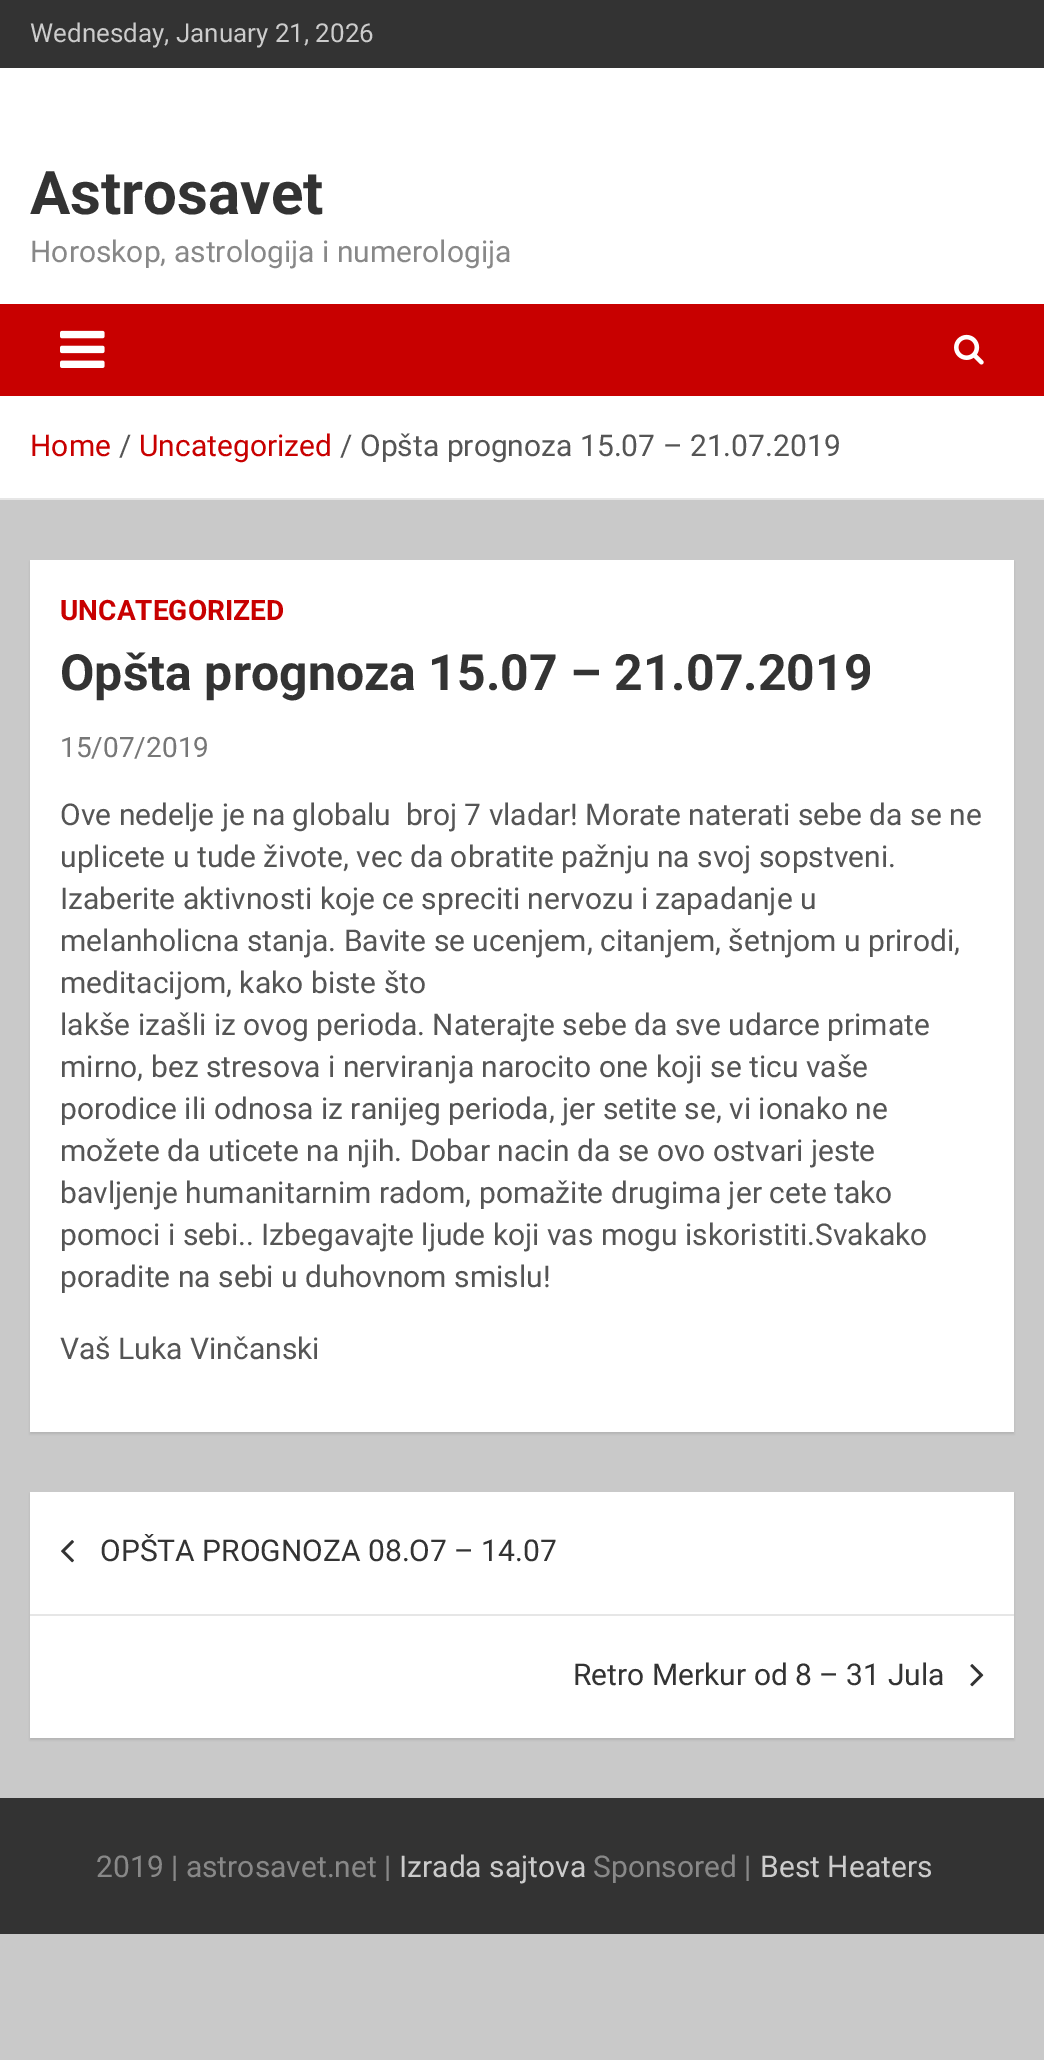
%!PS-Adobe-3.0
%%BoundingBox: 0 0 1044 2060
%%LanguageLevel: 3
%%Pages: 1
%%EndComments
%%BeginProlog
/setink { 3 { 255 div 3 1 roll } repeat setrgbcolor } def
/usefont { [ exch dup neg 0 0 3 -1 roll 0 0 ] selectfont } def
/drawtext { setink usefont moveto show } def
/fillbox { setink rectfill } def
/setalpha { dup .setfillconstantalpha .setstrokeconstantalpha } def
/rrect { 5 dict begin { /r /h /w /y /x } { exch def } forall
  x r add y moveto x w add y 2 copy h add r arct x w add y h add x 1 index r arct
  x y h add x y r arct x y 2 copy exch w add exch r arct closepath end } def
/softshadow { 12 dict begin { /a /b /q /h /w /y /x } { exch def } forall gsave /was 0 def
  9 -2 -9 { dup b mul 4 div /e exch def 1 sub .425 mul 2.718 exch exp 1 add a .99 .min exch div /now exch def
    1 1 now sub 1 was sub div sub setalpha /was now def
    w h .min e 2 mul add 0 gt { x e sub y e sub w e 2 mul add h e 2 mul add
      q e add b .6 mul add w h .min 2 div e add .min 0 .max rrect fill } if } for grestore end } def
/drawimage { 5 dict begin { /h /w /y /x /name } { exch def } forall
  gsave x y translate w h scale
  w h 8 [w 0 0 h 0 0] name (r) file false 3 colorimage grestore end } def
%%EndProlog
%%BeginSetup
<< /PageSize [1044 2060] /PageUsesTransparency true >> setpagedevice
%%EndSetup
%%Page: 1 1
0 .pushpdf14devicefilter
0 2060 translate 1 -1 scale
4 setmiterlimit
0 0 1044 2060 201 201 201 fillbox
0 0 1044 68 51 51 51 fillbox
(Wednesday, January 21, 2026) 30 42 /Roboto-Regular 26 204 204 204 drawtext
0 68 1044 236 255 255 255 fillbox
(Astrosavet) 30 214 /Roboto-Bold 60 51 51 51 drawtext
(Horoskop, astrologija i numerologija) 30 262 /Roboto-Regular 30 136 136 136 drawtext
0 304 1044 92 200 0 0 fillbox
(assets/img1.rgb) 60 330 45 38 drawimage
(assets/img2.rgb) 954 334 30 31 drawimage
0 396 1044 102 255 255 255 fillbox
0 498 1044 2 230 230 230 fillbox
(Home) 30 456 /Roboto-Regular 30 200 0 0 drawtext
(/) 119 456 /Roboto-Regular 30 85 85 85 drawtext
(Uncategorized) 139 456 /Roboto-Regular 30 200 0 0 drawtext
(/) 340 456 /Roboto-Regular 30 85 85 85 drawtext
(Opšta prognoza 15.07 – 21.07.2019) 360 456 /Roboto-Regular 30 85 85 85 drawtext
0 0 0 setink
30 562 984 872 0 1 0.1 softshadow
30 560 984 872 255 255 255 fillbox
(UNCATEGORIZED) 60 620 /Roboto-Bold 28 200 0 0 drawtext
(Opšta prognoza 15.07 – 21.07.2019) 60 690 /Roboto-Bold 50 51 51 51 drawtext
(15/07/2019) 60 757 /Roboto-Regular 28 119 119 119 drawtext
(Ove nedelje je na globalu  broj 7 vladar! Morate naterati sebe da se ne) 60 825 /Roboto-Regular 30 85 85 85 drawtext
(uplicete u tude živote, vec da obratite pažnju na svoj sopstveni.) 60 867 /Roboto-Regular 30 85 85 85 drawtext
(Izaberite aktivnosti koje ce spreciti nervozu i zapadanje u) 60 909 /Roboto-Regular 30 85 85 85 drawtext
(melanholicna stanja. Bavite se ucenjem, citanjem, šetnjom u prirodi,) 60 951 /Roboto-Regular 30 85 85 85 drawtext
(meditacijom, kako biste što) 60 993 /Roboto-Regular 30 85 85 85 drawtext
(lakše izašli iz ovog perioda. Naterajte sebe da sve udarce primate) 60 1035 /Roboto-Regular 30 85 85 85 drawtext
(mirno, bez stresova i nerviranja narocito one koji se ticu vaše) 60 1077 /Roboto-Regular 30 85 85 85 drawtext
(porodice ili odnosa iz ranijeg perioda, jer setite se, vi ionako ne) 60 1119 /Roboto-Regular 30 85 85 85 drawtext
(možete da uticete na njih. Dobar nacin da se ovo ostvari jeste) 60 1161 /Roboto-Regular 30 85 85 85 drawtext
(bavljenje humanitarnim radom, pomažite drugima jer cete tako) 60 1203 /Roboto-Regular 30 85 85 85 drawtext
(pomoci i sebi.. Izbegavajte ljude koji vas mogu iskoristiti.Svakako) 60 1245 /Roboto-Regular 30 85 85 85 drawtext
(poradite na sebi u duhovnom smislu!) 60 1287 /Roboto-Regular 30 85 85 85 drawtext
(Vaš Luka Vinčanski) 60 1359 /Roboto-Regular 30 85 85 85 drawtext
0 0 0 setink
30 1494 984 246 0 1 0.1 softshadow
30 1492 984 246 255 255 255 fillbox
30 1614 984 2 230 230 230 fillbox
(assets/img3.rgb) 61 1540 13 23 drawimage
(OPŠTA PROGNOZA 08.O7 – 14.07) 100 1561 /Roboto-Regular 30 51 51 51 drawtext
(Retro Merkur od 8 – 31 Jula) 573 1685 /Roboto-Regular 30 51 51 51 drawtext
(assets/img4.rgb) 970 1664 14 23 drawimage
0 1798 1044 136 51 51 51 fillbox
(2019 | astrosavet.net |) 96 1877 /Roboto-Regular 30 136 136 136 drawtext
(Izrada sajtova) 399 1877 /Roboto-Regular 30 204 204 204 drawtext
(Sponsored |) 593 1877 /Roboto-Regular 30 136 136 136 drawtext
(Best Heaters) 760 1877 /Roboto-Regular 30 204 204 204 drawtext
.poppdf14devicefilter showpage
%%EOF
